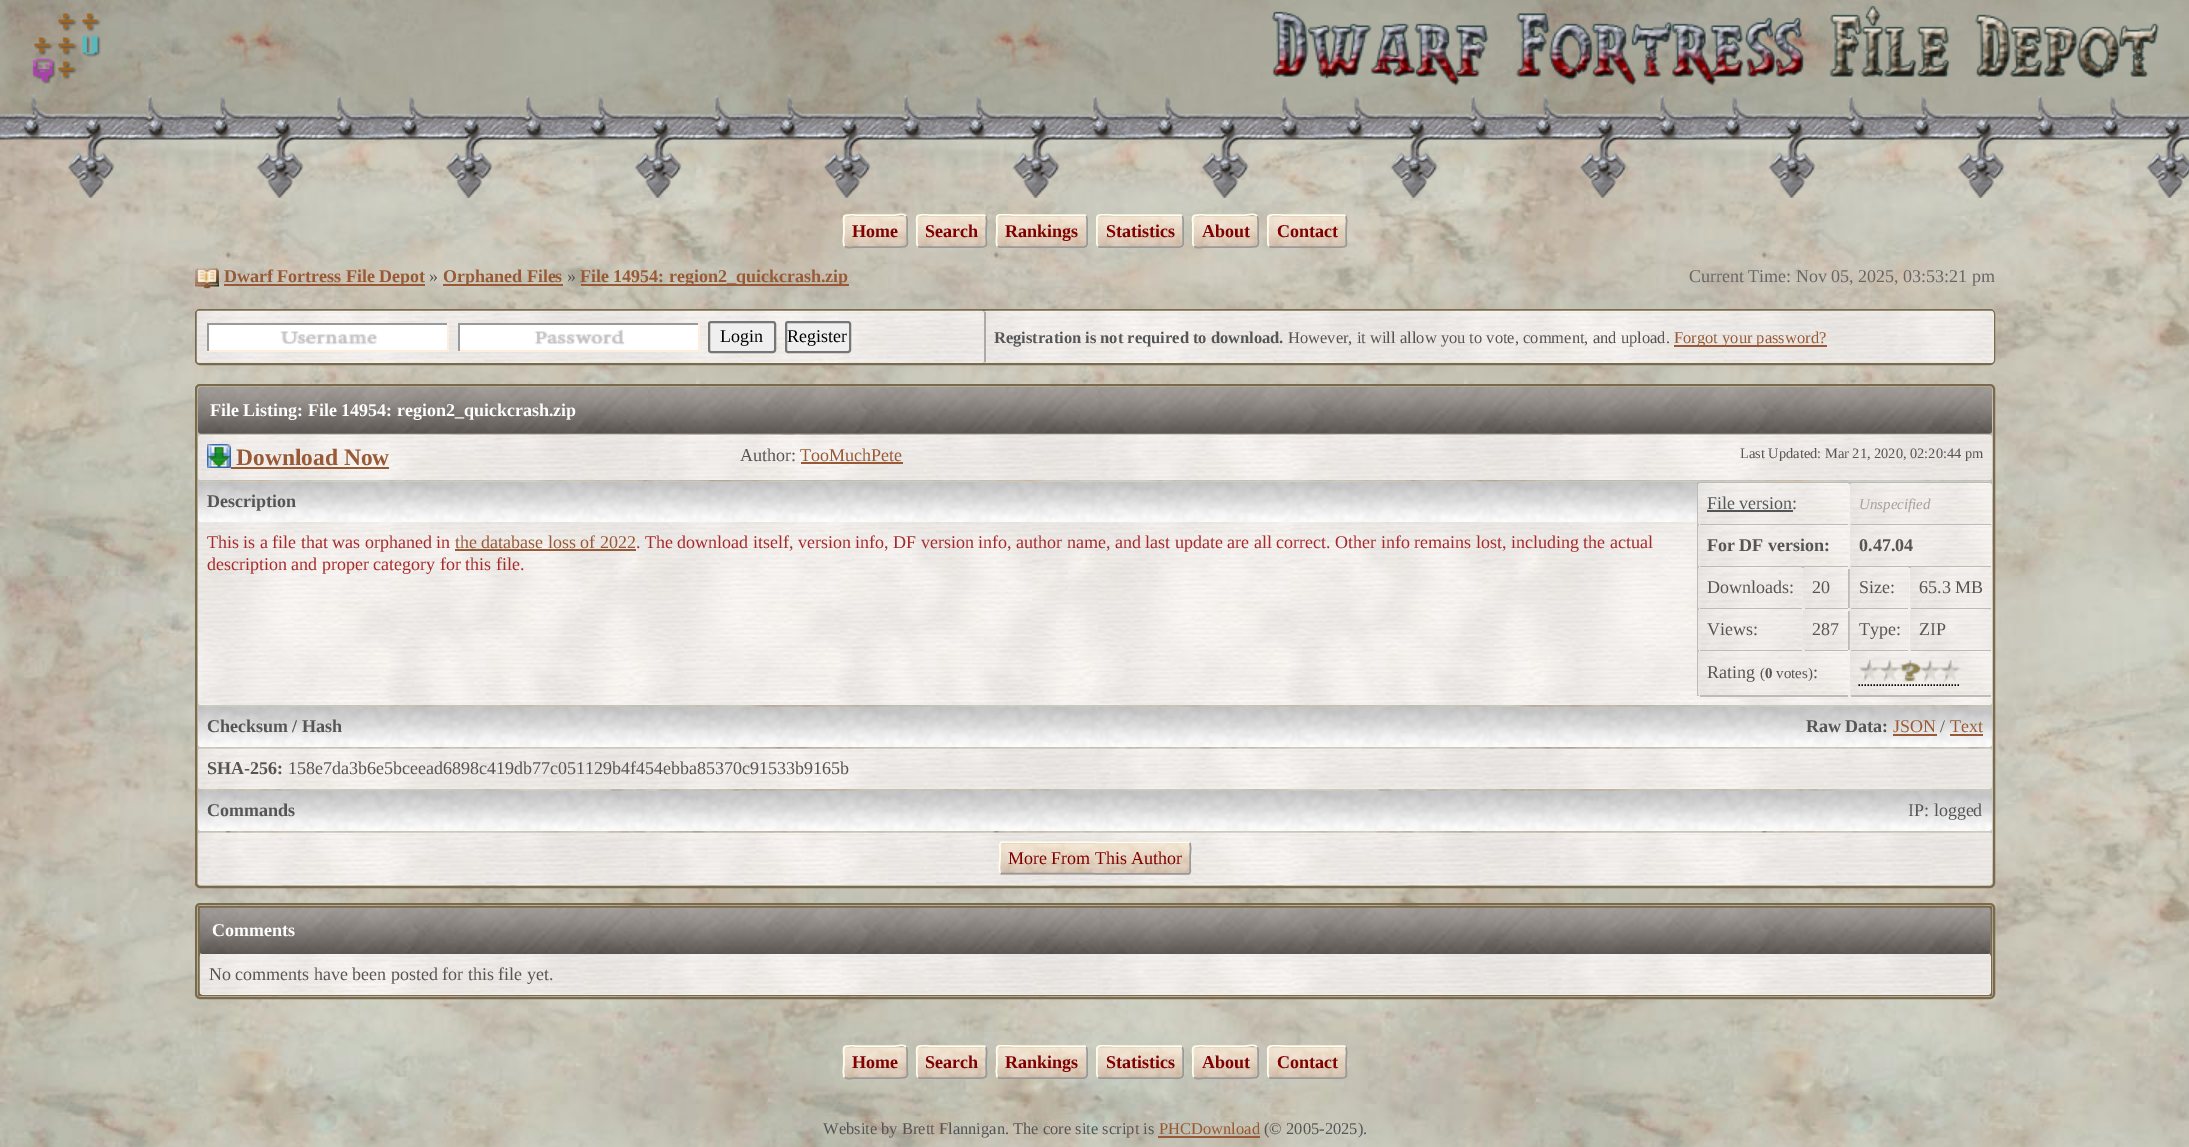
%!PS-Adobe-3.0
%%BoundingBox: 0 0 2189 1147
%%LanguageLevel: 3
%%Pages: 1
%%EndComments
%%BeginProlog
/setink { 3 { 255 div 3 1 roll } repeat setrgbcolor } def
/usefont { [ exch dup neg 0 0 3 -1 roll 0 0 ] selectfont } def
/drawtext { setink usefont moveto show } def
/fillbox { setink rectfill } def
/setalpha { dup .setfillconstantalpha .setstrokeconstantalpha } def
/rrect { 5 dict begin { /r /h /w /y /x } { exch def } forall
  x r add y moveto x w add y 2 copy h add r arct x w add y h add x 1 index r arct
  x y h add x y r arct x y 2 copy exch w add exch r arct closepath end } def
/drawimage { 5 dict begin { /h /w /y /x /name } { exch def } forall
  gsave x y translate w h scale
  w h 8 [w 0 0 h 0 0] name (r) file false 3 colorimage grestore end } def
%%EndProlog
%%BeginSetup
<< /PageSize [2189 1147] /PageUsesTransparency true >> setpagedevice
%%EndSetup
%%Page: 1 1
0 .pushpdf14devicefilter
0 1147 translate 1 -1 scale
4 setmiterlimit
0 0 2189 1147 255 255 255 fillbox
(assets/img1.rgb) 0 0 2189 1147 drawimage
0.3 setalpha
0 0 2189 118 96 96 80 fillbox
1 setalpha
(assets/img2.rgb) 32 13 69 71 drawimage
(assets/img3.rgb) 1271 5 888 81 drawimage
(assets/img4.rgb) 0 94 2189 104 drawimage
230 217 200 setink
843 215 65 33 3 rrect fill
(assets/img5.rgb) 843 214 65 34 drawimage
917 215 70 33 3 rrect fill
(assets/img6.rgb) 916 214 71 34 drawimage
996 215 92 33 3 rrect fill
(assets/img7.rgb) 996 214 92 34 drawimage
1097 215 87 33 3 rrect fill
(assets/img8.rgb) 1096 214 88 34 drawimage
1193 215 66 33 3 rrect fill
(assets/img9.rgb) 1192 214 67 34 drawimage
1268 215 79 33 3 rrect fill
(assets/img10.rgb) 1267 214 80 34 drawimage
153 153 153 setink
1.5 setlinewidth
906 216 moveto 908 217.5 907 228.5 907 231 curveto 907 248.5 910.5 247 895 247 curveto 856 247 lineto 852 247 847 249 844.5 246 curveto stroke
255 255 238 setink
844.5 246 moveto 842.5 244.5 844 233.5 844 231 curveto 844 213.5 840 215 856 215 curveto 895 215 lineto 898.5 215 903.5 213 906 216 curveto stroke
(Home) 852 237 /LiberationSerif-Bold 18 128 0 0 drawtext
153 153 153 setink
985.5 216 moveto 987.5 217.5 986 228.5 986 231 curveto 986 249 990 247 973 247 curveto 919.5 247 lineto 918 246 lineto stroke
255 255 238 setink
918 246 moveto 916 244.5 917 233.5 917 231 curveto 917 213 913.5 215 930 215 curveto 984 215 lineto 985.5 216 lineto stroke
(Search) 925 237 /LiberationSerif-Bold 18 128 0 0 drawtext
153 153 153 setink
1086 216 moveto 1088 217.5 1087 228.5 1087 231 curveto 1087 250.5 1090.5 247 1070 247 curveto 999 247 lineto 997.5 246 lineto stroke
255 255 238 setink
997.5 246 moveto 995.5 244.5 997 233.5 997 231 curveto 997 211.5 993 215 1013 215 curveto 1084.5 215 lineto 1086 216 lineto stroke
(Rankings) 1005 237 /LiberationSerif-Bold 18 128 0 0 drawtext
153 153 153 setink
1182 216 moveto 1184 217.5 1183 228.5 1183 231 curveto 1183 250 1186.5 247 1167 247 curveto 1099.5 247 lineto 1098 246 lineto stroke
255 255 238 setink
1098 246 moveto 1096 244.5 1097 233.5 1097 231 curveto 1097 212 1093.5 215 1113 215 curveto 1180.5 215 lineto 1182 216 lineto stroke
(Statistics) 1106 237 /LiberationSerif-Bold 18 128 0 0 drawtext
153 153 153 setink
1257 216 moveto 1259 217.5 1258 228.5 1258 231 curveto 1258 248.5 1261.5 247 1245.5 247 curveto 1205.5 247 lineto 1201.5 247 1196.5 249 1194 246 curveto stroke
255 255 238 setink
1194 246 moveto 1192 244.5 1193 233.5 1193 231 curveto 1193 213.5 1189.5 215 1205.5 215 curveto 1245.5 215 lineto 1249.5 215 1254.5 213 1257 216 curveto stroke
(About) 1202 237 /LiberationSerif-Bold 18 128 0 0 drawtext
153 153 153 setink
1345.5 216 moveto 1347.5 217.5 1346 228.5 1346 231 curveto 1346 249.5 1350 247 1332 247 curveto 1270.5 247 lineto 1269 246 lineto stroke
255 255 238 setink
1269 246 moveto 1267 244.5 1268 233.5 1268 231 curveto 1268 212.5 1264.5 215 1283 215 curveto 1344 215 lineto 1345.5 216 lineto stroke
(Contact) 1277 237 /LiberationSerif-Bold 18 128 0 0 drawtext
(assets/img11.rgb) 195 268 24 21 drawimage
224 284 201 2 152 90 54 fillbox
(Dwarf Fortress File Depot) 224 282 /LiberationSerif-Bold 18 152 90 54 drawtext
(») 429 282 /LiberationSerif-Regular 18 85 85 85 drawtext
443 284 120 2 152 90 54 fillbox
(Orphaned Files) 443 282 /LiberationSerif-Bold 18 152 90 54 drawtext
(») 567 282 /LiberationSerif-Regular 18 85 85 85 drawtext
581 284 268 2 152 90 54 fillbox
(File 14954: region2_quickcrash.zip) 580 282 /LiberationSerif-Bold 18 152 90 54 drawtext
(Current Time: Nov 05, 2025, 03:53:21 pm) 1689 282 /LiberationSerif-Regular 18 102 102 102 drawtext
122 106 76 setink
2 setlinewidth
196 310 1798 54 4 rrect stroke
(assets/img12.rgb) 196 310 788 53 drawimage
209 325 238 25 255 255 255 fillbox
(assets/img13.rgb) 280 331 97 14 drawimage
207 323 242 2 153 153 153 fillbox
447 323 2 28 255 238 221 fillbox
207 350 242 2 255 238 221 fillbox
207 323 2 28 153 153 153 fillbox
460 325 238 25 255 255 255 fillbox
(assets/img14.rgb) 534 329 91 16 drawimage
458 323 241 2 153 153 153 fillbox
698 323 2 28 255 238 221 fillbox
458 350 241 2 255 238 221 fillbox
458 323 2 28 153 153 153 fillbox
239 239 239 setink
709 322 66 30 2 rrect gsave fill grestore
118 118 118 setink
stroke
(Login) 720 342 /LiberationSerif-Regular 18 0 0 0 drawtext
239 239 239 setink
786 322 64 30 2 rrect gsave fill grestore
118 118 118 setink
stroke
(Register) 787 342 /LiberationSerif-Regular 18 0 0 0 drawtext
244 241 236 setink
984 311 1010 52 3 rrect fill
(assets/img15.rgb) 984 310 1010 53 drawimage
984 312 2 50 170 170 170 fillbox
(Registration is not required to download.) 994 343 /LiberationSerif-Bold 16.5 85 85 85 drawtext
(However, it will allow you to vote, comment, and upload.) 1288 343 /LiberationSerif-Regular 16.5 85 85 85 drawtext
1674 345 153 2 152 90 54 fillbox
(Forgot your password?) 1674 343 /LiberationSerif-Regular 16.5 152 90 54 drawtext
122 106 76 setink
196 385 1798 502 4 rrect stroke
131 126 122 setink
198 387 1794 47 3 rrect fill
(assets/img16.rgb) 198 387 1794 47 drawimage
(File Listing: File 14954: region2_quickcrash.zip) 210 416 /LiberationSerif-Bold 18 255 255 255 drawtext
(assets/img17.rgb) 198 435 1794 45 drawimage
(assets/img18.rgb) 207 444 24 24 drawimage
(Download Now) 236 465 /LiberationSerif-Bold 23.5 152 90 54 drawtext
231 467 158 2 152 90 54 fillbox
(Author:) 740 461 /LiberationSerif-Regular 18 85 85 85 drawtext
(TooMuchPete) 800 461 /LiberationSerif-Regular 18 152 90 54 drawtext
801 462 102 2 152 90 54 fillbox
(Last Updated: Mar 21, 2020, 02:20:44 pm) 1740 458 /LiberationSerif-Regular 14.4 85 85 85 drawtext
(assets/img19.rgb) 198 481 1794 224 drawimage
(assets/img20.rgb) 198 481 1794 41 drawimage
(Description) 207 507 /LiberationSerif-Bold 18 85 85 85 drawtext
1697 482 295 2 187 187 187 fillbox
1697 482 2 214 187 187 187 fillbox
244 241 236 setink
1698 483 152 42 3 rrect fill
(assets/img21.rgb) 1698 483 151 42 drawimage
1700 524 148 2 187 187 187 fillbox
(File version:) 1707 509 /LiberationSerif-Regular 18 85 85 85 drawtext
1707 510 86 2 85 85 85 fillbox
(assets/img22.rgb) 1850 483 142 42 drawimage
1851 524 140 2 187 187 187 fillbox
(Unspecified) 1859 509 /LiberationSerif-Italic 15 170 160 154 drawtext
244 241 236 setink
1698 525 152 42 3 rrect fill
(assets/img23.rgb) 1698 525 151 42 drawimage
1700 566 148 2 187 187 187 fillbox
(For DF version:) 1707 551 /LiberationSerif-Bold 18 85 85 85 drawtext
(assets/img24.rgb) 1850 525 142 42 drawimage
1851 566 140 2 187 187 187 fillbox
(0.47.04) 1859 551 /LiberationSerif-Bold 18 85 85 85 drawtext
(assets/img25.rgb) 1698 567 105 42 drawimage
1700 608 102 2 187 187 187 fillbox
(Downloads:) 1707 593 /LiberationSerif-Regular 18 85 85 85 drawtext
244 241 236 setink
1803 567 47 42 3 rrect fill
(assets/img26.rgb) 1803 567 46 42 drawimage
1848 569 2 39 187 187 187 fillbox
1805 608 43 2 187 187 187 fillbox
(20) 1812 593 /LiberationSerif-Regular 18 85 85 85 drawtext
244 241 236 setink
1850 567 60 42 3 rrect fill
(assets/img27.rgb) 1849 567 60 42 drawimage
1851 608 57 2 187 187 187 fillbox
(Size:) 1859 593 /LiberationSerif-Regular 18 85 85 85 drawtext
(assets/img28.rgb) 1910 567 82 42 drawimage
1911 608 80 2 187 187 187 fillbox
(65.3 MB) 1919 593 /LiberationSerif-Regular 18 85 85 85 drawtext
(assets/img29.rgb) 1698 609 105 42 drawimage
1700 650 102 2 187 187 187 fillbox
(Views:) 1707 635 /LiberationSerif-Regular 18 85 85 85 drawtext
244 241 236 setink
1803 609 47 42 3 rrect fill
(assets/img30.rgb) 1803 609 46 42 drawimage
1848 611 2 39 187 187 187 fillbox
1805 650 43 2 187 187 187 fillbox
(287) 1812 635 /LiberationSerif-Regular 18 85 85 85 drawtext
244 241 236 setink
1850 609 60 42 3 rrect fill
(assets/img31.rgb) 1849 609 60 42 drawimage
1851 650 57 2 187 187 187 fillbox
(Type:) 1859 635 /LiberationSerif-Regular 18 85 85 85 drawtext
(assets/img32.rgb) 1910 609 82 42 drawimage
1911 650 80 2 187 187 187 fillbox
(ZIP) 1919 635 /LiberationSerif-Regular 18 85 85 85 drawtext
244 241 236 setink
1698 651 152 45 3 rrect fill
(assets/img33.rgb) 1698 651 151 45 drawimage
1700 695 148 2 187 187 187 fillbox
(Rating) 1707 678 /LiberationSerif-Regular 18 85 85 85 drawtext
(\() 1760 678 /LiberationSerif-Regular 15 85 85 85 drawtext
(0) 1765 678 /LiberationSerif-Bold 15 85 85 85 drawtext
(votes\)) 1776 678 /LiberationSerif-Regular 15 85 85 85 drawtext
(:) 1813 678 /LiberationSerif-Regular 18 85 85 85 drawtext
(assets/img34.rgb) 1850 651 142 45 drawimage
1851 695 140 2 187 187 187 fillbox
(assets/img35.rgb) 1858 660 103 24 drawimage
0 0 0 setink
1.5 setlinewidth
[1.5 1.5] 0 setdash
1858.5 685 moveto 1960.5 685 lineto stroke
(This is a file that was orphaned in) 207 548 /LiberationSerif-Regular 18 165 42 42 drawtext
(the database loss of 2022) 455 548 /LiberationSerif-Regular 18 152 90 54 drawtext
(. The download itself, version info, DF version info, author name, and last update are all correct. Other info remains lost, including the actual) 636 548 /LiberationSerif-Regular 18 165 42 42 drawtext
455 549 181 2 152 90 54 fillbox
(description and proper category for this file.) 207 570 /LiberationSerif-Regular 18 165 42 42 drawtext
(assets/img36.rgb) 198 706 1794 41 drawimage
(Checksum / Hash) 207 732 /LiberationSerif-Bold 18 85 85 85 drawtext
(Raw Data:) 1806 732 /LiberationSerif-Bold 18 85 85 85 drawtext
(JSON) 1893 732 /LiberationSerif-Regular 18 152 90 54 drawtext
1893 734 44 2 152 90 54 fillbox
(/) 1940 732 /LiberationSerif-Regular 18 85 85 85 drawtext
(Text) 1950 732 /LiberationSerif-Regular 18 152 90 54 drawtext
1950 734 33 2 152 90 54 fillbox
(assets/img37.rgb) 198 748 1794 41 drawimage
(SHA-256:) 207 774 /LiberationSerif-Bold 18 85 85 85 drawtext
(158e7da3b6e5bceead6898c419db77c051129b4f454ebba85370c91533b9165b) 288 774 /LiberationSerif-Regular 18 85 85 85 drawtext
(assets/img38.rgb) 198 790 1794 41 drawimage
(Commands) 207 816 /LiberationSerif-Bold 18 85 85 85 drawtext
(IP: logged) 1908 816 /LiberationSerif-Regular 18 85 85 85 drawtext
(assets/img39.rgb) 198 832 1794 53 drawimage
230 217 200 setink
999 842 192 33 3 rrect fill
(assets/img40.rgb) 999 841 192 34 drawimage
153 153 153 setink
[] 0 setdash
1189.5 843 moveto 1191.5 844.5 1190 855.5 1190 858 curveto 1190 867 lineto 1190 868.5 1191.5 873.5 1188 874 curveto 1001 873.5 lineto 1000.5 873 lineto stroke
255 255 238 setink
1000.5 873 moveto 998.5 871.5 1000 860.5 1000 858 curveto 1000 849 lineto 1000 847.5 998.5 842.5 1002 842 curveto 1189 842.5 lineto 1189.5 843 lineto stroke
(More From This Author) 1008 864 /LiberationSerif-Regular 18 128 0 0 drawtext
122 106 76 setink
2 setlinewidth
196 904 1798 94 4 rrect stroke
199 907 1792 88 0.5 rrect stroke
131 126 122 setink
200 908 1791 46 3 rrect fill
(assets/img41.rgb) 199 907 1792 47 drawimage
(Comments) 212 936 /LiberationSerif-Bold 18 255 255 255 drawtext
244 241 236 setink
200 954 1791 41 3 rrect fill
(assets/img42.rgb) 199 954 1792 41 drawimage
(No comments have been posted for this file yet.) 209 980 /LiberationSerif-Regular 18 85 85 85 drawtext
230 217 200 setink
843 1046 65 33 3 rrect fill
(assets/img43.rgb) 843 1045 65 34 drawimage
917 1046 70 33 3 rrect fill
(assets/img44.rgb) 916 1045 71 34 drawimage
996 1046 92 33 3 rrect fill
(assets/img45.rgb) 996 1045 92 34 drawimage
1097 1046 87 33 3 rrect fill
(assets/img46.rgb) 1096 1045 88 34 drawimage
1193 1046 66 33 3 rrect fill
(assets/img47.rgb) 1192 1045 67 34 drawimage
1268 1046 79 33 3 rrect fill
(assets/img48.rgb) 1267 1045 80 34 drawimage
153 153 153 setink
1.5 setlinewidth
906 1047 moveto 908 1048.5 907 1059.5 907 1062 curveto 907 1079.5 910.5 1078 895 1078 curveto 856 1078 lineto 852 1078 847 1080 844.5 1077 curveto stroke
255 255 238 setink
844.5 1077 moveto 842.5 1075.5 844 1064.5 844 1062 curveto 844 1044.5 840 1046 856 1046 curveto 895 1046 lineto 898.5 1046 903.5 1044 906 1047 curveto stroke
(Home) 852 1068 /LiberationSerif-Bold 18 128 0 0 drawtext
153 153 153 setink
985.5 1047 moveto 987.5 1048.5 986 1059.5 986 1062 curveto 986 1080 990 1078 973 1078 curveto 919.5 1078 lineto 918 1077 lineto stroke
255 255 238 setink
918 1077 moveto 916 1075.5 917 1064.5 917 1062 curveto 917 1044 913.5 1046 930 1046 curveto 984 1046 lineto 985.5 1047 lineto stroke
(Search) 925 1068 /LiberationSerif-Bold 18 128 0 0 drawtext
153 153 153 setink
1086 1047 moveto 1088 1048.5 1087 1059.5 1087 1062 curveto 1087 1081.5 1090.5 1078 1070 1078 curveto 999 1078 lineto 997.5 1077 lineto stroke
255 255 238 setink
997.5 1077 moveto 995.5 1075.5 997 1064.5 997 1062 curveto 997 1042.5 993 1046 1013 1046 curveto 1084.5 1046 lineto 1086 1047 lineto stroke
(Rankings) 1005 1068 /LiberationSerif-Bold 18 128 0 0 drawtext
153 153 153 setink
1182 1047 moveto 1184 1048.5 1183 1059.5 1183 1062 curveto 1183 1081 1186.5 1078 1167 1078 curveto 1099.5 1078 lineto 1098 1077 lineto stroke
255 255 238 setink
1098 1077 moveto 1096 1075.5 1097 1064.5 1097 1062 curveto 1097 1043 1093.5 1046 1113 1046 curveto 1180.5 1046 lineto 1182 1047 lineto stroke
(Statistics) 1106 1068 /LiberationSerif-Bold 18 128 0 0 drawtext
153 153 153 setink
1257 1047 moveto 1259 1048.5 1258 1059.5 1258 1062 curveto 1258 1079.5 1261.5 1078 1245.5 1078 curveto 1205.5 1078 lineto 1201.5 1078 1196.5 1080 1194 1077 curveto stroke
255 255 238 setink
1194 1077 moveto 1192 1075.5 1193 1064.5 1193 1062 curveto 1193 1044.5 1189.5 1046 1205.5 1046 curveto 1245.5 1046 lineto 1249.5 1046 1254.5 1044 1257 1047 curveto stroke
(About) 1202 1068 /LiberationSerif-Bold 18 128 0 0 drawtext
153 153 153 setink
1345.5 1047 moveto 1347.5 1048.5 1346 1059.5 1346 1062 curveto 1346 1080.5 1350 1078 1332 1078 curveto 1270.5 1078 lineto 1269 1077 lineto stroke
255 255 238 setink
1269 1077 moveto 1267 1075.5 1268 1064.5 1268 1062 curveto 1268 1043.5 1264.5 1046 1283 1046 curveto 1344 1046 lineto 1345.5 1047 lineto stroke
(Contact) 1277 1068 /LiberationSerif-Bold 18 128 0 0 drawtext
(Website by Brett Flannigan. The core site script is) 823 1134 /LiberationSerif-Regular 16.5 85 85 85 drawtext
(PHCDownload) 1159 1134 /LiberationSerif-Regular 16.5 152 90 54 drawtext
1158 1136 102 2 152 90 54 fillbox
(\(© 2005-2025\).) 1264 1134 /LiberationSerif-Regular 16.5 85 85 85 drawtext
.poppdf14devicefilter showpage
%%EOF
